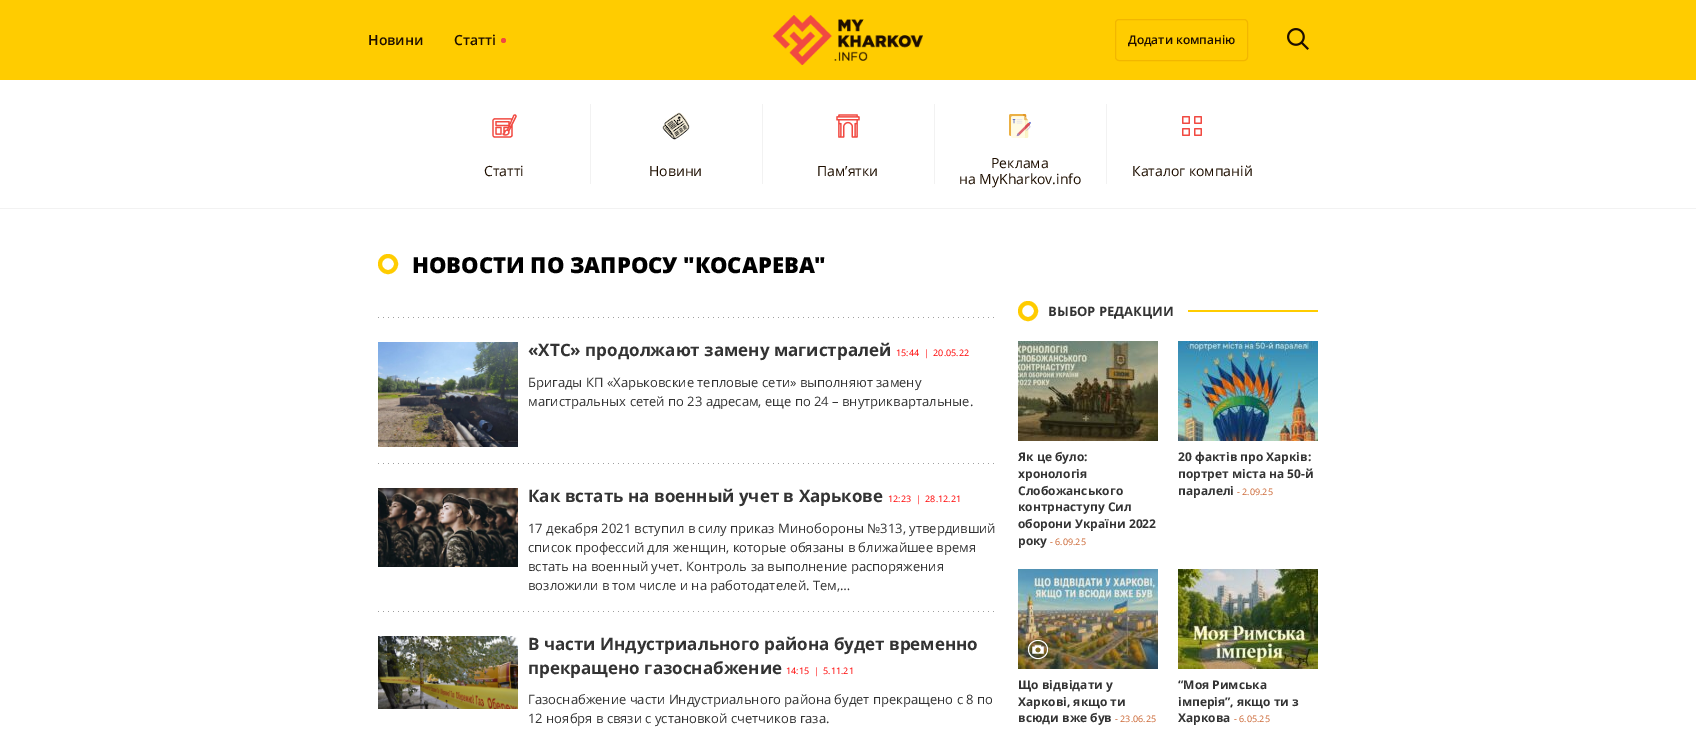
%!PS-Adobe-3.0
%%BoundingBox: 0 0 1696 732
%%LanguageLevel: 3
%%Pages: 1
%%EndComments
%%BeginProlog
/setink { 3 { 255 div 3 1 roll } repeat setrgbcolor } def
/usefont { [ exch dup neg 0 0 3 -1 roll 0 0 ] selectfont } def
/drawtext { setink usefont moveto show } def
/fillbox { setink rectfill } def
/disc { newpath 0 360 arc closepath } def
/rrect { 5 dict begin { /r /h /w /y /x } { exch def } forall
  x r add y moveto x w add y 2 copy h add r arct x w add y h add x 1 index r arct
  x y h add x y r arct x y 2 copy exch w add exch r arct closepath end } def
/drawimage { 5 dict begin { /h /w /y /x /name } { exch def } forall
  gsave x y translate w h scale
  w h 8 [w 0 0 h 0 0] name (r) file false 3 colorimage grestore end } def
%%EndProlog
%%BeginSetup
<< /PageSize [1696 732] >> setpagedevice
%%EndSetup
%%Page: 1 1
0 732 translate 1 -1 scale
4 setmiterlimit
0 0 1696 732 255 255 255 fillbox
0 0 1696 80 255 204 0 fillbox
(Новини) 368 45 /OpenSans-SemiBold 14 30 14 0 drawtext
(Статті) 454 45 /OpenSans-SemiBold 14 30 14 0 drawtext
241 73 65 setink
503.5 40.5 2.5 disc fill
(assets/img1.rgb) 773 15 150 50 drawimage
242 182 0 setink
1115.5 19.5 132 41 3.5 rrect stroke
(Додати компанію) 1128 44 /OpenSans-SemiBold 12 30 14 0 drawtext
(assets/img2.rgb) 1287 28 22 22 drawimage
0 208 1696 1 242 242 242 fillbox
(assets/img3.rgb) 492 114 25 24 drawimage
(Статті) 484 176 /OpenSans-Regular 14 30 14 0 drawtext
590 104 1 80 242 242 242 fillbox
(assets/img4.rgb) 662 112 28 28 drawimage
(Новини) 649 176 /OpenSans-Regular 14 30 14 0 drawtext
762 104 1 80 242 242 242 fillbox
(assets/img5.rgb) 836 114 24 24 drawimage
(Пам’ятки) 817 176 /OpenSans-Regular 14 30 14 0 drawtext
934 104 1 80 242 242 242 fillbox
(assets/img6.rgb) 1009 114 22 24 drawimage
(Реклама) 991 168 /OpenSans-Regular 14 30 14 0 drawtext
(на MyKharkov.info) 959 184 /OpenSans-Regular 14 30 14 0 drawtext
1106 104 1 80 242 242 242 fillbox
(assets/img7.rgb) 1182 116 20 20 drawimage
(Каталог компаній) 1132 176 /OpenSans-Regular 14 30 14 0 drawtext
255 204 0 setink
4 setlinewidth
388 264 8 disc stroke
(НОВОСТИ ПО ЗАПРОСУ "КОСАРЕВА") 412 273 /OpenSans-ExtraBold 22 0 0 0 drawtext
(assets/img8.rgb) 378 317 616 1 drawimage
(assets/img9.rgb) 378 342 140 105 drawimage
(«ХТС» продолжают замену магистралей) 528 356 /OpenSans-Bold 17 51 51 51 drawtext
(15:44  |  20.05.22) 896 356 /OpenSans-Regular 9 255 1 1 drawtext
(Бригады КП «Харьковские тепловые сети» выполняют замену) 528 387 /OpenSans-Regular 13 51 51 51 drawtext
(магистральных сетей по 23 адресам, еще по 24 – внутриквартальные.) 528 406 /OpenSans-Regular 13 51 51 51 drawtext
(assets/img8.rgb) 378 463 616 1 drawimage
(assets/img10.rgb) 378 488 140 79 drawimage
(Как встать на военный учет в Харькове) 528 502 /OpenSans-Bold 17 51 51 51 drawtext
(12:23  |  28.12.21) 888 502 /OpenSans-Regular 9 255 1 1 drawtext
(17 декабря 2021 вступил в силу приказ Минобороны №313, утвердивший) 528 533 /OpenSans-Regular 13 51 51 51 drawtext
(список профессий для женщин, которые обязаны в ближайшее время) 528 552 /OpenSans-Regular 13 51 51 51 drawtext
(встать на военный учет. Контроль за выполнение распоряжения) 528 571 /OpenSans-Regular 13 51 51 51 drawtext
(возложили в том числе и на работодателей. Тем,…) 528 590 /OpenSans-Regular 13 51 51 51 drawtext
(assets/img8.rgb) 378 611 616 1 drawimage
(assets/img11.rgb) 378 636 140 73 drawimage
(В части Индустриального района будет временно) 528 650 /OpenSans-Bold 17 51 51 51 drawtext
(прекращено газоснабжение) 528 674 /OpenSans-Bold 17 51 51 51 drawtext
(14:15  |  5.11.21) 786 674 /OpenSans-Regular 9 255 1 1 drawtext
(Газоснабжение части Индустриального района будет прекращено с 8 по) 528 704 /OpenSans-Regular 13 51 51 51 drawtext
(12 ноября в связи с установкой счетчиков газа.) 528 723 /OpenSans-Regular 13 51 51 51 drawtext
255 204 0 setink
1028 311 8 disc stroke
(ВЫБОР РЕДАКЦИИ) 1048 316 /OpenSans-Bold 13 51 51 51 drawtext
1188 310 130 2 255 204 0 fillbox
(assets/img12.rgb) 1018 341 140 100 drawimage
(Як це було:) 1018 461 /OpenSans-Bold 12 51 51 51 drawtext
(хронологія) 1018 478 /OpenSans-Bold 12 51 51 51 drawtext
(Слобожанського) 1018 495 /OpenSans-Bold 12 51 51 51 drawtext
(контрнаступу Сил) 1018 511 /OpenSans-Bold 12 51 51 51 drawtext
(оборони України 2022) 1018 528 /OpenSans-Bold 12 51 51 51 drawtext
(року) 1018 545 /OpenSans-Bold 12 51 51 51 drawtext
(- 6.09.25) 1050 545 /OpenSans-Regular 9 204 102 51 drawtext
(assets/img13.rgb) 1178 341 140 100 drawimage
(20 фактів про Харків:) 1178 461 /OpenSans-Bold 12 51 51 51 drawtext
(портрет міста на 50-й) 1178 478 /OpenSans-Bold 12 51 51 51 drawtext
(паралелі) 1178 495 /OpenSans-Bold 12 51 51 51 drawtext
(- 2.09.25) 1237 495 /OpenSans-Regular 9 204 102 51 drawtext
(assets/img14.rgb) 1018 569 140 100 drawimage
(assets/img15.rgb) 1028 640 20 19 drawimage
(Що відвідати у) 1018 689 /OpenSans-Bold 12 51 51 51 drawtext
(Харкові, якщо ти) 1018 706 /OpenSans-Bold 12 51 51 51 drawtext
(всюди вже був) 1018 722 /OpenSans-Bold 12 51 51 51 drawtext
(- 23.06.25) 1115 722 /OpenSans-Regular 9 204 102 51 drawtext
(assets/img16.rgb) 1178 569 140 100 drawimage
(“Моя Римська) 1178 689 /OpenSans-Bold 12 51 51 51 drawtext
(імперія”, якщо ти з) 1178 706 /OpenSans-Bold 12 51 51 51 drawtext
(Харкова) 1178 722 /OpenSans-Bold 12 51 51 51 drawtext
(- 6.05.25) 1234 722 /OpenSans-Regular 9 204 102 51 drawtext
showpage
%%EOF
